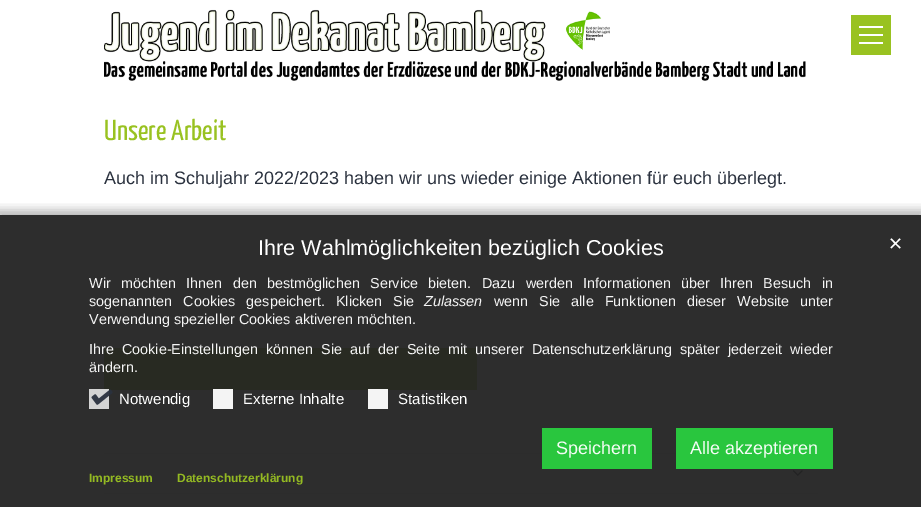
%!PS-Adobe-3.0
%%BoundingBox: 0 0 921 507
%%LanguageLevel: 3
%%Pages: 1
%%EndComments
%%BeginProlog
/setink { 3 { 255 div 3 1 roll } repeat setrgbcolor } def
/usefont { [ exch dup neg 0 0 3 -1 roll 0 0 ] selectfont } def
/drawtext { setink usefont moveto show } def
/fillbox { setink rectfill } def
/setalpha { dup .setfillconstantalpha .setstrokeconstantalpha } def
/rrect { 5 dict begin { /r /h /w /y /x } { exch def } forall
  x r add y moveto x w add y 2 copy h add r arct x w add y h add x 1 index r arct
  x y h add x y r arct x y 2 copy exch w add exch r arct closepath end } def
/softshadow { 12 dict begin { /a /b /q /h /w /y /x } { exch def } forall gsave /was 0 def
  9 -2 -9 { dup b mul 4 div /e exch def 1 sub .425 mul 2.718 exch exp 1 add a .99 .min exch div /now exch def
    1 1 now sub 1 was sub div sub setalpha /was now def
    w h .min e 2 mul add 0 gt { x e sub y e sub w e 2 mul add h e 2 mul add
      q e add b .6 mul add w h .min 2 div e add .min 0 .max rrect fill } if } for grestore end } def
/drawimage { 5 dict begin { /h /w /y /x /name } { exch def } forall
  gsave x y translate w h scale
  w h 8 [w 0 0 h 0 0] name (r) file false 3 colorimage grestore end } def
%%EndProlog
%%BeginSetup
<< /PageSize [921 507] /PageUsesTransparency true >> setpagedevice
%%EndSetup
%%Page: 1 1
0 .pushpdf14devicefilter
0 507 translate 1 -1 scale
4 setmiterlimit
0 0 921 507 255 255 255 fillbox
(assets/img1.rgb) 104 9 702 72 drawimage
851 15 40 40 153 194 33 fillbox
859 34 24 2 255 255 255 fillbox
859 26 24 2 255 255 255 fillbox
859 42 24 2 255 255 255 fillbox
(Unsere Arbeit) 104 140 /YanoneKaffeesatz-Regular 29 153 194 33 drawtext
(Auch im Schuljahr 2022/2023 haben wir uns wieder einige Aktionen für euch überlegt.) 104 184 /LiberationSans-Regular 18 42 49 62 drawtext
104 348 373 42 153 194 33 fillbox
104 453 572 1 221 221 221 fillbox
(assets/img2.rgb) 792 470 11 6 drawimage
104 493 714 1 221 221 221 fillbox
gsave
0 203 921 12 rectclip
0 0 0 setink
-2 210 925 296 0 5 0.28 softshadow
grestore
0.95 setalpha
0 215 921 292 34 34 34 fillbox
1 setalpha
(Ihre Wahlmöglichkeiten bezüglich Cookies) 258 255 /LiberationSans-Regular 21.6 255 255 255 drawtext
(✕) 888 250 /DejaVuSans-Regular 18 255 255 255 drawtext
/LiberationSans-Regular 14.4 usefont
244 244 244 setink
89 288 moveto 6.25 0 32 (Wir möchten Ihnen den bestmöglichen Service bieten. Dazu werden Informationen über Ihren Besuch in) widthshow
89 306 moveto 7 0 32 (sogenannten Cookies gespeichert. Klicken Sie) widthshow
(Zulassen) 424 306 /LiberationSans-Italic 14.4 244 244 244 drawtext
/LiberationSans-Regular 14.4 usefont
494 306 moveto 7 0 32 (wenn Sie alle Funktionen dieser Website unter) widthshow
(Verwendung spezieller Cookies aktiveren möchten.) 89 324 /LiberationSans-Regular 14.4 244 244 244 drawtext
89 354 moveto 4 0 32 (Ihre Cookie-Einstellungen können Sie auf der Seite mit unserer Datenschutzerklärung später jederzeit wieder) widthshow
(ändern.) 89 372 /LiberationSans-Regular 14.4 244 244 244 drawtext
0.95 setalpha
89 389 20 20 221 221 221 fillbox
1 setalpha
(assets/img3.rgb) 91 389 22 16 drawimage
(Notwendig) 119 404 /LiberationSans-Regular 15 255 255 255 drawtext
0.95 setalpha
213 389 20 20 255 255 255 fillbox
1 setalpha
(Externe Inhalte) 243 404 /LiberationSans-Regular 15 255 255 255 drawtext
0.95 setalpha
368 389 20 20 255 255 255 fillbox
1 setalpha
(Statistiken) 398 404 /LiberationSans-Regular 15 255 255 255 drawtext
542 428 110 41 41 198 62 fillbox
(Speichern) 556 454 /LiberationSans-Regular 18 244 252 245 drawtext
676 428 157 41 41 198 62 fillbox
(Alle akzeptieren) 690 454 /LiberationSans-Regular 18 244 252 245 drawtext
(Impressum) 89 482 /LiberationSans-Bold 12 148 186 34 drawtext
(Datenschutzerklärung) 177 482 /LiberationSans-Bold 12 148 186 34 drawtext
.poppdf14devicefilter showpage
%%EOF
